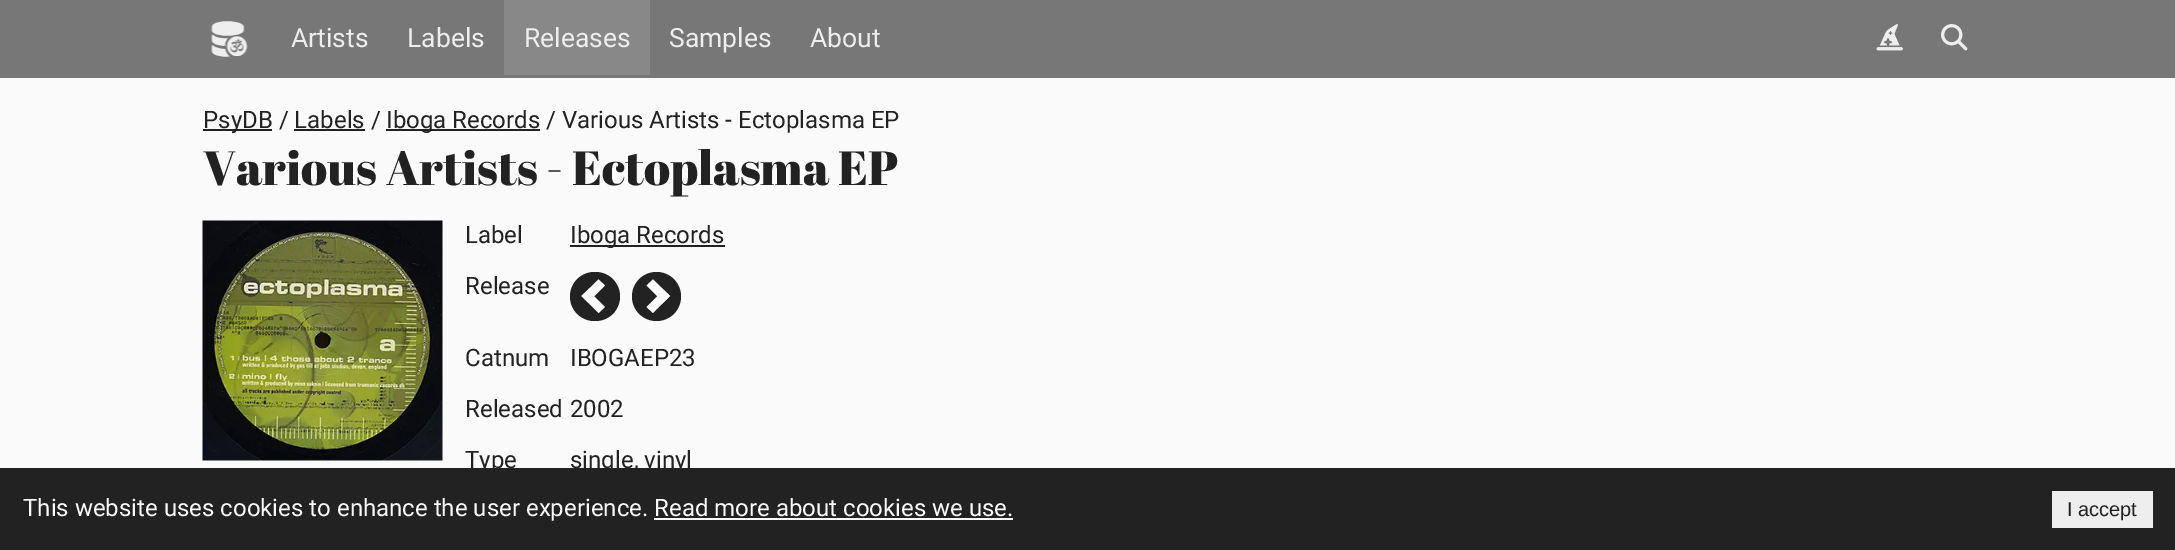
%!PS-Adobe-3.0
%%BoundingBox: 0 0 2175 550
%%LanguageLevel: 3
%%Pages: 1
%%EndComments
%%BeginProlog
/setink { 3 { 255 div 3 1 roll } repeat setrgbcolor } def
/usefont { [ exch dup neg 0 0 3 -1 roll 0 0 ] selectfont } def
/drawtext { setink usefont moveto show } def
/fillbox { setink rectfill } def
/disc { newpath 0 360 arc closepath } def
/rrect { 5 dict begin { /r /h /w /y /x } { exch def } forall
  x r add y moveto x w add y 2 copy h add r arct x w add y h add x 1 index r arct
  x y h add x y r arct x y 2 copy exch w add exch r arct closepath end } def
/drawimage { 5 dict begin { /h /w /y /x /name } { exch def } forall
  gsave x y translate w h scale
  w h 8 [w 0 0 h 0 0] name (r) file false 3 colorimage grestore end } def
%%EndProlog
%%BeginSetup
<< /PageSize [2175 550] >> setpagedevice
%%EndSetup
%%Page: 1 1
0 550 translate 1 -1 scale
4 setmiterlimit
0 0 2175 550 250 250 250 fillbox
0 0 2175 78 119 119 119 fillbox
(assets/img1.rgb) 211 21 37 36 drawimage
(Artists) 291 47 /Roboto-Regular 26.5 238 238 238 drawtext
(Labels) 407 47 /Roboto-Regular 26.5 238 238 238 drawtext
504 0 146 75 136 136 136 fillbox
(Releases) 524 47 /Roboto-Regular 26.5 238 238 238 drawtext
(Samples) 669 47 /Roboto-Regular 26.5 238 238 238 drawtext
(About) 810 47 /Roboto-Regular 26.5 238 238 238 drawtext
(assets/img2.rgb) 1876 24 27 27 drawimage
(assets/img3.rgb) 1941 24 27 27 drawimage
203 129 69 2 34 34 34 fillbox
(PsyDB / Labels /) 203 128 /Roboto-Regular 24 34 34 34 drawtext
386 129 154 2 34 34 34 fillbox
(Iboga Records / Various Artists - Ectoplasma EP) 386 128 /Roboto-Regular 24 34 34 34 drawtext
294 129 71 2 34 34 34 fillbox
(Various Artists - Ectoplasma EP) 203 185 /AbrilFatface-Regular 48 34 34 34 drawtext
(assets/img4.rgb) 202 220 241 241 drawimage
(Label) 465 243 /Roboto-Regular 24 34 34 34 drawtext
570 245 155 2 34 34 34 fillbox
(Iboga Records) 570 243 /Roboto-Regular 24 34 34 34 drawtext
(Release) 465 294 /Roboto-Regular 24 34 34 34 drawtext
570 272 50 49 24.5 rrect fill
250 250 250 setink
598.5 313 moveto 581.5 296 lineto 588 290 lineto 605 307 lineto closepath fill
588 302.5 moveto 581.5 296 lineto 598.5 279.5 lineto 605 285.5 lineto closepath fill
34 34 34 setink
656.5 296.5 24.5 disc fill
250 250 250 setink
653 279.5 moveto 670 296 lineto 663.5 302.5 lineto 646.5 285.5 lineto closepath fill
663.5 290 moveto 670 296 lineto 653 313 lineto 646.5 307 lineto closepath fill
(Catnum) 465 366 /Roboto-Regular 24 34 34 34 drawtext
(IBOGAEP23) 570 366 /Roboto-Regular 24 34 34 34 drawtext
(Released) 465 417 /Roboto-Regular 24 34 34 34 drawtext
(2002) 570 417 /Roboto-Regular 24 34 34 34 drawtext
(Type) 465 468 /Roboto-Regular 24 34 34 34 drawtext
(single, vinyl) 570 468 /Roboto-Regular 24 34 34 34 drawtext
0 468 2175 82 34 34 34 fillbox
(This website uses cookies to enhance the user experience. Read more about cookies we use.) 23 516 /Roboto-Regular 24 250 250 250 drawtext
654 518 359 2 250 250 250 fillbox
2052 491 101 37 238 238 238 fillbox
(I accept) 2067 516 /LiberationSans-Regular 20 34 34 34 drawtext
showpage
%%EOF
